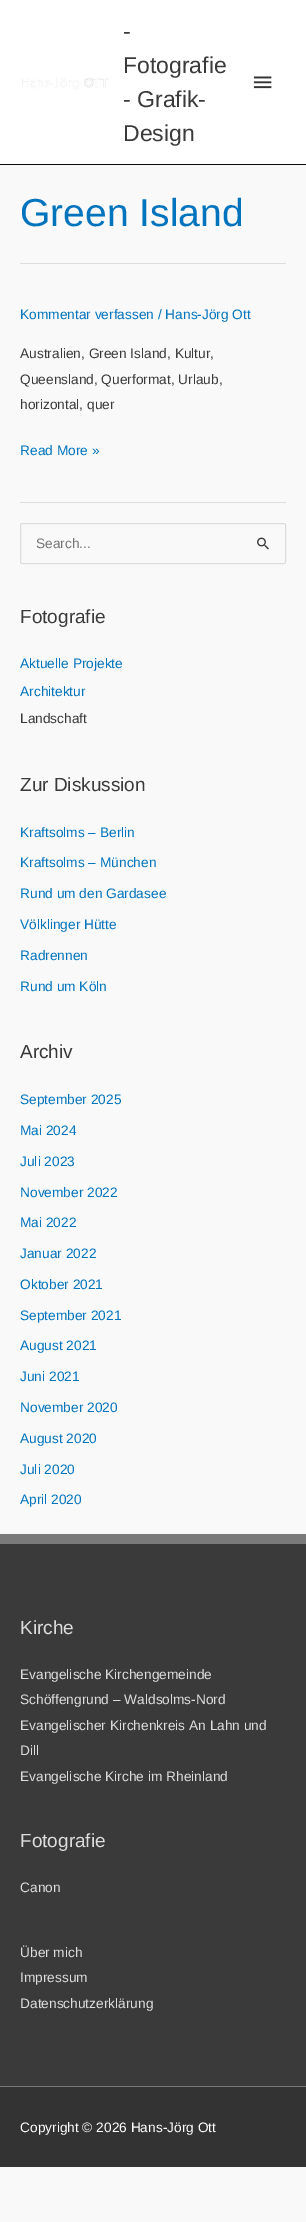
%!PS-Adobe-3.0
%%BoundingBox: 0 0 306 2222
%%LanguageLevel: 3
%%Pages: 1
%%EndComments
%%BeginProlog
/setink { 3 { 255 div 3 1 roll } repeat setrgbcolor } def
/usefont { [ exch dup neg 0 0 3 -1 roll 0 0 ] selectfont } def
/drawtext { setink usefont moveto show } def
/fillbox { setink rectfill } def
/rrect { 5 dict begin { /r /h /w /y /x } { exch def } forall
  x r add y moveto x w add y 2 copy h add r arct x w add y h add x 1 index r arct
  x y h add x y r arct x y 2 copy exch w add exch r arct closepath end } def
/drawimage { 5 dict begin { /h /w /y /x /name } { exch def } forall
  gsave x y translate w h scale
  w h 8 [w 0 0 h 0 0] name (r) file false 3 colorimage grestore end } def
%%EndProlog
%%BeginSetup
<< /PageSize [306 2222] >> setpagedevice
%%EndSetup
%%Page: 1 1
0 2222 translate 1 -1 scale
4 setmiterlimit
0 0 306 2222 249 249 249 fillbox
0 0 306 164 255 255 255 fillbox
0 164 306 1 10 10 10 fillbox
(assets/img1.rgb) 22 78 87 12 drawimage
(-) 123 39 /LiberationSans-Regular 23 58 58 58 drawtext
(Fotografie) 123 73 /LiberationSans-Regular 23 58 58 58 drawtext
(- Grafik-) 123 107 /LiberationSans-Regular 23 58 58 58 drawtext
(Design) 123 141 /LiberationSans-Regular 23 58 58 58 drawtext
(assets/img2.rgb) 253 76 19 13 drawimage
20 263 266 1 221 221 221 fillbox
(Green Island) 20 226 /LiberationSans-Regular 39 2 116 190 drawtext
20 502 266 1 221 221 221 fillbox
(Kommentar verfassen / Hans-Jörg Ott) 20 319 /LiberationSans-Regular 13.7 2 116 190 drawtext
(Australien, Green Island, Kultur,) 20 358 /LiberationSans-Regular 13.7 58 58 58 drawtext
(Queensland, Querformat, Urlaub,) 20 384 /LiberationSans-Regular 13.7 58 58 58 drawtext
(horizontal, quer) 20 409 /LiberationSans-Regular 13.7 58 58 58 drawtext
(Read More ») 20 455 /LiberationSans-Regular 13.7 2 116 190 drawtext
221 221 221 setink
20.5 523.5 265 40 1.5 rrect stroke
(Search...) 36 548 /LiberationSans-Regular 13.7 117 117 117 drawtext
(assets/img3.rgb) 257 537 12 13 drawimage
(Fotografie) 20 623 /LiberationSans-Regular 19 58 58 58 drawtext
(Aktuelle Projekte) 20 668 /LiberationSans-Regular 13.7 2 116 190 drawtext
(Architektur) 20 696 /LiberationSans-Regular 13.7 2 116 190 drawtext
(Landschaft) 20 723 /LiberationSans-Regular 13.7 58 58 58 drawtext
(Zur Diskussion) 20 791 /LiberationSans-Regular 19 58 58 58 drawtext
(Kraftsolms – Berlin) 20 837 /LiberationSans-Regular 13.7 2 116 190 drawtext
(Kraftsolms – München) 20 867 /LiberationSans-Regular 13.7 2 116 190 drawtext
(Rund um den Gardasee) 20 898 /LiberationSans-Regular 13.7 2 116 190 drawtext
(Völklinger Hütte) 20 929 /LiberationSans-Regular 13.7 2 116 190 drawtext
(Radrennen) 20 960 /LiberationSans-Regular 13.7 2 116 190 drawtext
(Rund um Köln) 20 991 /LiberationSans-Regular 13.7 2 116 190 drawtext
(Archiv) 20 1058 /LiberationSans-Regular 19 58 58 58 drawtext
(September 2025) 20 1104 /LiberationSans-Regular 13.7 2 116 190 drawtext
(Mai 2024) 20 1135 /LiberationSans-Regular 13.7 2 116 190 drawtext
(Juli 2023) 20 1166 /LiberationSans-Regular 13.7 2 116 190 drawtext
(November 2022) 20 1197 /LiberationSans-Regular 13.7 2 116 190 drawtext
(Mai 2022) 20 1227 /LiberationSans-Regular 13.7 2 116 190 drawtext
(Januar 2022) 20 1258 /LiberationSans-Regular 13.7 2 116 190 drawtext
(Oktober 2021) 20 1289 /LiberationSans-Regular 13.7 2 116 190 drawtext
(September 2021) 20 1320 /LiberationSans-Regular 13.7 2 116 190 drawtext
(August 2021) 20 1350 /LiberationSans-Regular 13.7 2 116 190 drawtext
(Juni 2021) 20 1381 /LiberationSans-Regular 13.7 2 116 190 drawtext
(November 2020) 20 1412 /LiberationSans-Regular 13.7 2 116 190 drawtext
(August 2020) 20 1443 /LiberationSans-Regular 13.7 2 116 190 drawtext
(Juli 2020) 20 1474 /LiberationSans-Regular 13.7 2 116 190 drawtext
(April 2020) 20 1504 /LiberationSans-Regular 13.7 2 116 190 drawtext
0 1544 306 542 58 58 58 fillbox
0 1534 306 10 122 122 122 fillbox
(Kirche) 20 1634 /LiberationSans-Regular 19 221 221 221 drawtext
(Evangelische Kirchengemeinde) 20 1679 /LiberationSans-Regular 13.7 221 221 221 drawtext
(Schöffengrund – Waldsolms-Nord) 20 1704 /LiberationSans-Regular 13.7 221 221 221 drawtext
(Evangelischer Kirchenkreis An Lahn und) 20 1730 /LiberationSans-Regular 13.7 221 221 221 drawtext
(Dill) 20 1755 /LiberationSans-Regular 13.7 221 221 221 drawtext
(Evangelische Kirche im Rheinland) 20 1781 /LiberationSans-Regular 13.7 221 221 221 drawtext
(Fotografie) 20 1847 /LiberationSans-Regular 19 221 221 221 drawtext
(Canon) 20 1892 /LiberationSans-Regular 13.7 221 221 221 drawtext
(Über mich) 20 1957 /LiberationSans-Regular 13.7 221 221 221 drawtext
(Impressum) 20 1982 /LiberationSans-Regular 13.7 221 221 221 drawtext
(Datenschutzerklärung) 20 2008 /LiberationSans-Regular 13.7 221 221 221 drawtext
0 2086 306 1 122 122 122 fillbox
0 2087 306 80 51 51 51 fillbox
(Copyright © 2026 Hans-Jörg Ott) 20 2132 /LiberationSans-Regular 13.7 255 255 255 drawtext
showpage
%%EOF
